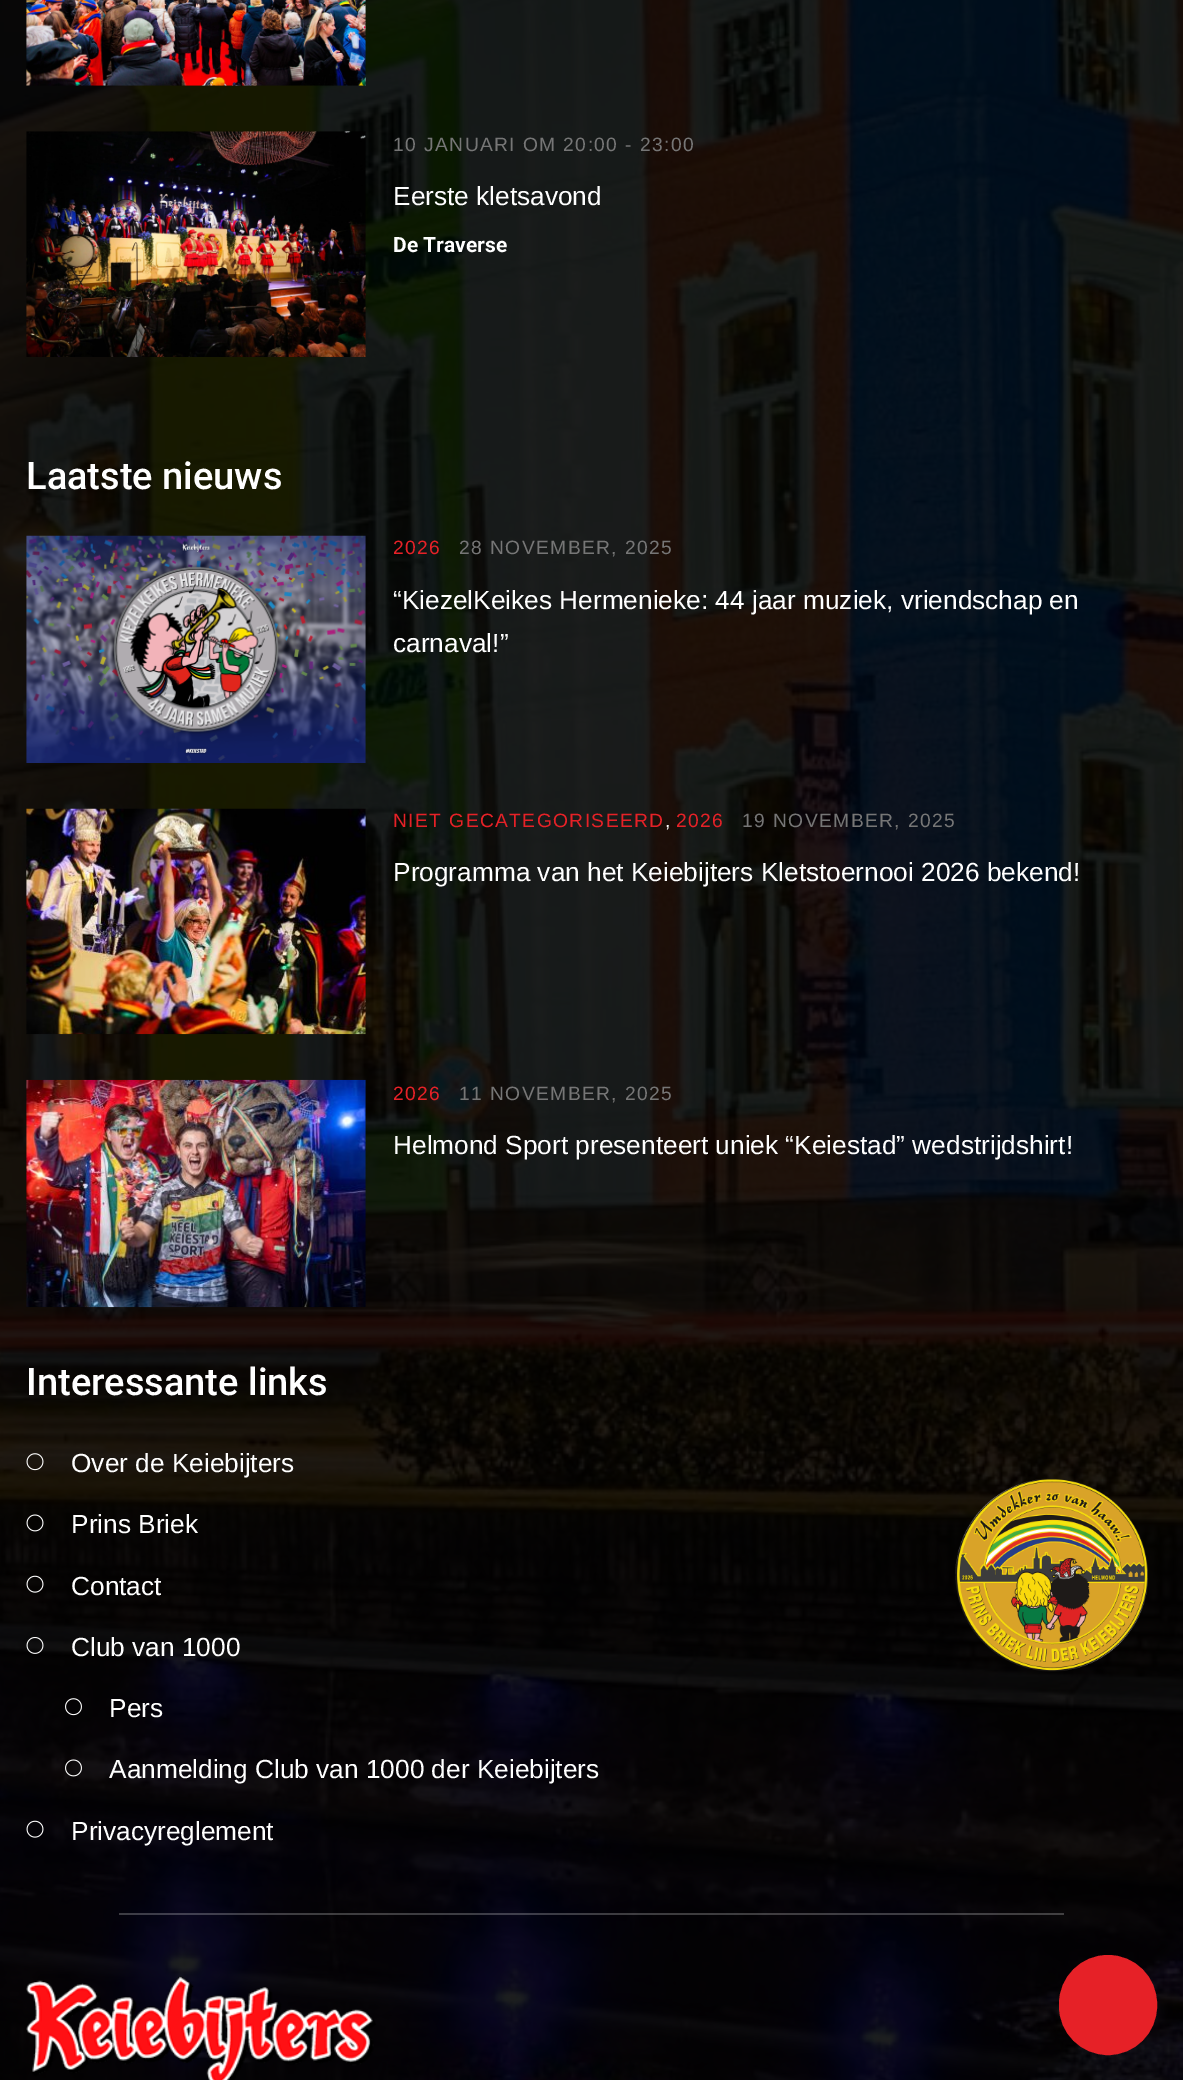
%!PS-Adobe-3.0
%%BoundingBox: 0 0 1183 2080
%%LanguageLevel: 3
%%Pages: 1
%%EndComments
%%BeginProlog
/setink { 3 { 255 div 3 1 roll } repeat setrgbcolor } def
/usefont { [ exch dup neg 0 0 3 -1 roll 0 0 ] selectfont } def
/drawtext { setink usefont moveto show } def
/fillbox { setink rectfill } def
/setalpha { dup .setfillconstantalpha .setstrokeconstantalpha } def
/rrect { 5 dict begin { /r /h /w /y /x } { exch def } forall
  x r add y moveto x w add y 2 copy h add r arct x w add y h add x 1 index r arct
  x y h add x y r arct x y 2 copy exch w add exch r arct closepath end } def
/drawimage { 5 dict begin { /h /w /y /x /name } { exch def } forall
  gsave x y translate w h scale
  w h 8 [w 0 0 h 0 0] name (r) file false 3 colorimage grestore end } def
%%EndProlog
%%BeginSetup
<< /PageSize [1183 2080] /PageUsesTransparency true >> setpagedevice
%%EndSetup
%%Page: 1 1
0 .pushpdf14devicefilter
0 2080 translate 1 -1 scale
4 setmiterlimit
0 0 1183 2080 255 255 255 fillbox
(assets/img1.rgb) 0 0 1183 2080 drawimage
(assets/img2.rgb) 26 0 340 86 drawimage
(assets/img3.rgb) 26 131 340 226 drawimage
/LiberationSans-Regular 19.25 usefont
118 118 118 setink
393 151 moveto 1.4 0 (10 JANUARI OM 20:00 - 23:00) ashow
(Eerste kletsavond) 393 205 /LiberationSans-Regular 26.25 255 255 255 drawtext
(De Traverse) 393 252 /Roboto-Bold 21 255 255 255 drawtext
(Laatste nieuws) 26 489 /Roboto-Medium 38 255 255 255 drawtext
(assets/img4.rgb) 26 535 340 228 drawimage
/LiberationSans-Regular 19.25 usefont
230 33 39 setink
393 554 moveto 1.4 0 (2026) ashow
118 118 118 setink
459 554 moveto 1.4 0 (28 NOVEMBER, 2025) ashow
(“KiezelKeikes Hermenieke: 44 jaar muziek, vriendschap en) 393 609 /LiberationSans-Regular 26.25 255 255 255 drawtext
(carnaval!”) 393 652 /LiberationSans-Regular 26.25 255 255 255 drawtext
(assets/img5.rgb) 26 808 340 227 drawimage
/LiberationSans-Regular 19.25 usefont
230 33 39 setink
393 827 moveto 1.4 0 (NIET GECATEGORISEERD) ashow
(,) 665 827 /LiberationSans-Regular 19.25 255 255 255 drawtext
230 33 39 setink
676 827 moveto 1.4 0 (2026) ashow
118 118 118 setink
742 827 moveto 1.4 0 (19 NOVEMBER, 2025) ashow
(Programma van het Keiebijters Kletstoernooi 2026 bekend!) 393 881 /LiberationSans-Regular 26.25 255 255 255 drawtext
(assets/img6.rgb) 26 1079 340 229 drawimage
/LiberationSans-Regular 19.25 usefont
230 33 39 setink
393 1100 moveto 1.4 0 (2026) ashow
118 118 118 setink
459 1100 moveto 1.4 0 (11 NOVEMBER, 2025) ashow
(Helmond Sport presenteert uniek “Keiestad” wedstrijdshirt!) 393 1154 /LiberationSans-Regular 26.25 255 255 255 drawtext
(Interessante links) 26 1395 /Roboto-Medium 38 255 255 255 drawtext
(assets/img7.rgb) 26 1453 18 18 drawimage
(Over de Keiebijters) 71 1472 /LiberationSans-Regular 26.25 255 255 255 drawtext
(assets/img8.rgb) 26 1514 18 18 drawimage
(Prins Briek) 71 1533 /LiberationSans-Regular 26.25 255 255 255 drawtext
(assets/img9.rgb) 26 1575 18 18 drawimage
(Contact) 71 1595 /LiberationSans-Regular 26.25 255 255 255 drawtext
(assets/img10.rgb) 26 1637 18 17 drawimage
(Club van 1000) 71 1656 /LiberationSans-Regular 26.25 255 255 255 drawtext
(assets/img11.rgb) 65 1698 17 18 drawimage
(Pers) 109 1717 /LiberationSans-Regular 26.25 255 255 255 drawtext
(assets/img12.rgb) 65 1759 17 18 drawimage
(Aanmelding Club van 1000 der Keiebijters) 109 1778 /LiberationSans-Regular 26.25 255 255 255 drawtext
(assets/img13.rgb) 26 1820 18 18 drawimage
(Privacyreglement) 71 1840 /LiberationSans-Regular 26.25 255 255 255 drawtext
(assets/img14.rgb) 955 1478 193 194 drawimage
0.23 setalpha
119 1913 945 2 255 255 255 fillbox
1 setalpha
(assets/img15.rgb) 26 1976 350 104 drawimage
230 33 39 setink
1060 1956 96 98 48 rrect gsave fill grestore
2 setlinewidth
stroke
.poppdf14devicefilter showpage
%%EOF
